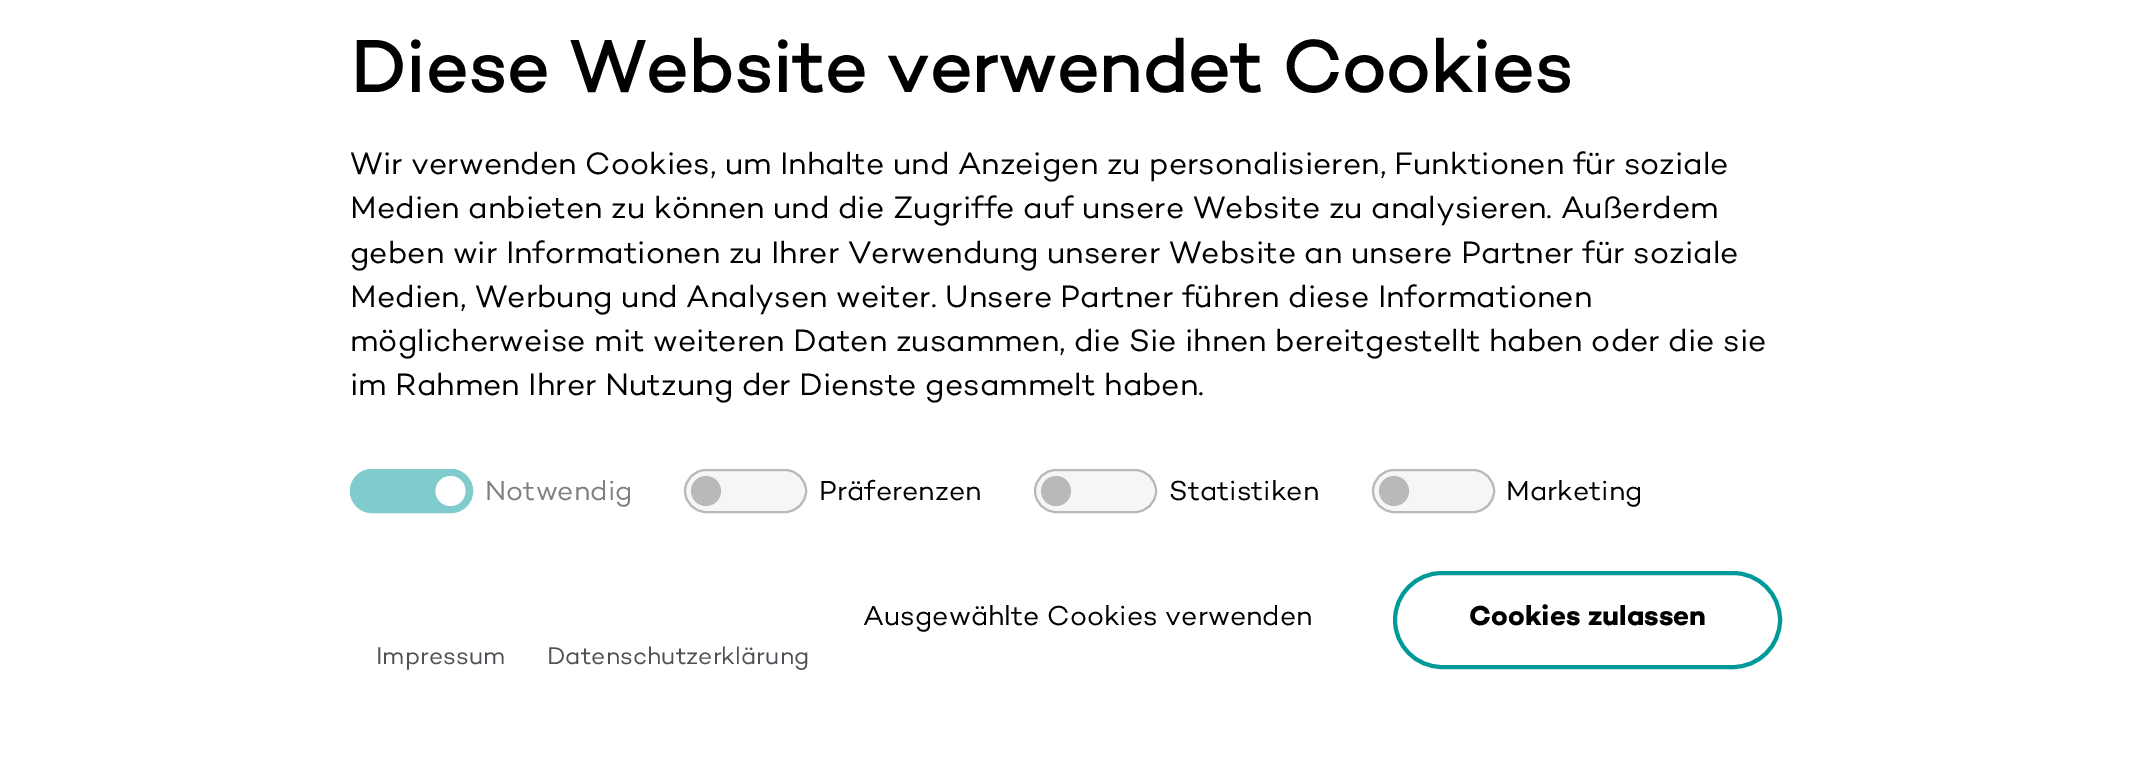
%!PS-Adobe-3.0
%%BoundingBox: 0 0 2130 771
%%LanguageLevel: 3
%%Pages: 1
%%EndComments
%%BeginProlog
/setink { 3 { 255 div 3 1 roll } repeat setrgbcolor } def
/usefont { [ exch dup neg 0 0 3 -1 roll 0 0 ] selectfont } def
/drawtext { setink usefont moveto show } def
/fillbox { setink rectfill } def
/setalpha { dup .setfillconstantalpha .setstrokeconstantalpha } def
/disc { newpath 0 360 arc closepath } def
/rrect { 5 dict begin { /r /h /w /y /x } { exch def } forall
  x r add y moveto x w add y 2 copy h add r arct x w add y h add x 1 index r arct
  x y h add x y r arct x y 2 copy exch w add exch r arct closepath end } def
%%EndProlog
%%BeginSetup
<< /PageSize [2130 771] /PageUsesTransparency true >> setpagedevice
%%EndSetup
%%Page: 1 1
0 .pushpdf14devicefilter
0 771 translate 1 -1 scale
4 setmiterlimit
0 0 2130 771 255 255 255 fillbox
(Diese Website verwendet Cookies) 350 92 /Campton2-Bold 73.5 0 0 0 drawtext
(Wir verwenden Cookies, um Inhalte und Anzeigen zu personalisieren, Funktionen für soziale) 350 174 /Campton-Regular 31.5 0 0 0 drawtext
(Medien anbieten zu können und die Zugriffe auf unsere Website zu analysieren. Außerdem) 350 218 /Campton-Regular 31.5 0 0 0 drawtext
(geben wir Informationen zu Ihrer Verwendung unserer Website an unsere Partner für soziale) 350 263 /Campton-Regular 31.5 0 0 0 drawtext
(Medien, Werbung und Analysen weiter. Unsere Partner führen diese Informationen) 350 307 /Campton-Regular 31.5 0 0 0 drawtext
(möglicherweise mit weiteren Daten zusammen, die Sie ihnen bereitgestellt haben oder die sie) 350 351 /Campton-Regular 31.5 0 0 0 drawtext
(im Rahmen Ihrer Nutzung der Dienste gesammelt haben.) 350 395 /Campton-Regular 31.5 0 0 0 drawtext
(Impressum) 376 664 /Campton-Regular 24.5 77 80 85 drawtext
(Datenschutzerklärung) 547 664 /Campton-Regular 24.5 77 80 85 drawtext
128 204 204 setink
350 469 123 44 22 rrect fill
255 255 255 setink
450.5 491 15 disc fill
128 204 204 setink
2 setlinewidth
351 470 121 42 21 rrect stroke
(Notwendig) 485 500 /Campton-Regular 28 128 128 128 drawtext
246 246 246 setink
684 469 123 44 22 rrect fill
185 185 185 setink
706 491 15 disc fill
0.25 setalpha
0 0 0 setink
685 470 121 42 21 rrect stroke
1 setalpha
(Präferenzen) 819 500 /Campton-Regular 28 0 0 0 drawtext
246 246 246 setink
1034 469 123 44 22 rrect fill
185 185 185 setink
1056 491 15 disc fill
0.25 setalpha
0 0 0 setink
1035 470 121 42 21 rrect stroke
1 setalpha
(Statistiken) 1169 500 /Campton-Regular 28 0 0 0 drawtext
246 246 246 setink
1372 469 123 44 22 rrect fill
185 185 185 setink
1394 491 15 disc fill
0.25 setalpha
0 0 0 setink
1373 470 121 42 21 rrect stroke
1 setalpha
(Marketing) 1506 500 /Campton-Regular 28 0 0 0 drawtext
(Ausgewählte Cookies verwenden) 863 625 /Campton-Regular 28 0 0 0 drawtext
0 153 153 setink
4 setlinewidth
1395 573 385 94 47 rrect stroke
(Cookies zulassen) 1469 625 /Campton-Bold 28 0 0 0 drawtext
.poppdf14devicefilter showpage
%%EOF
